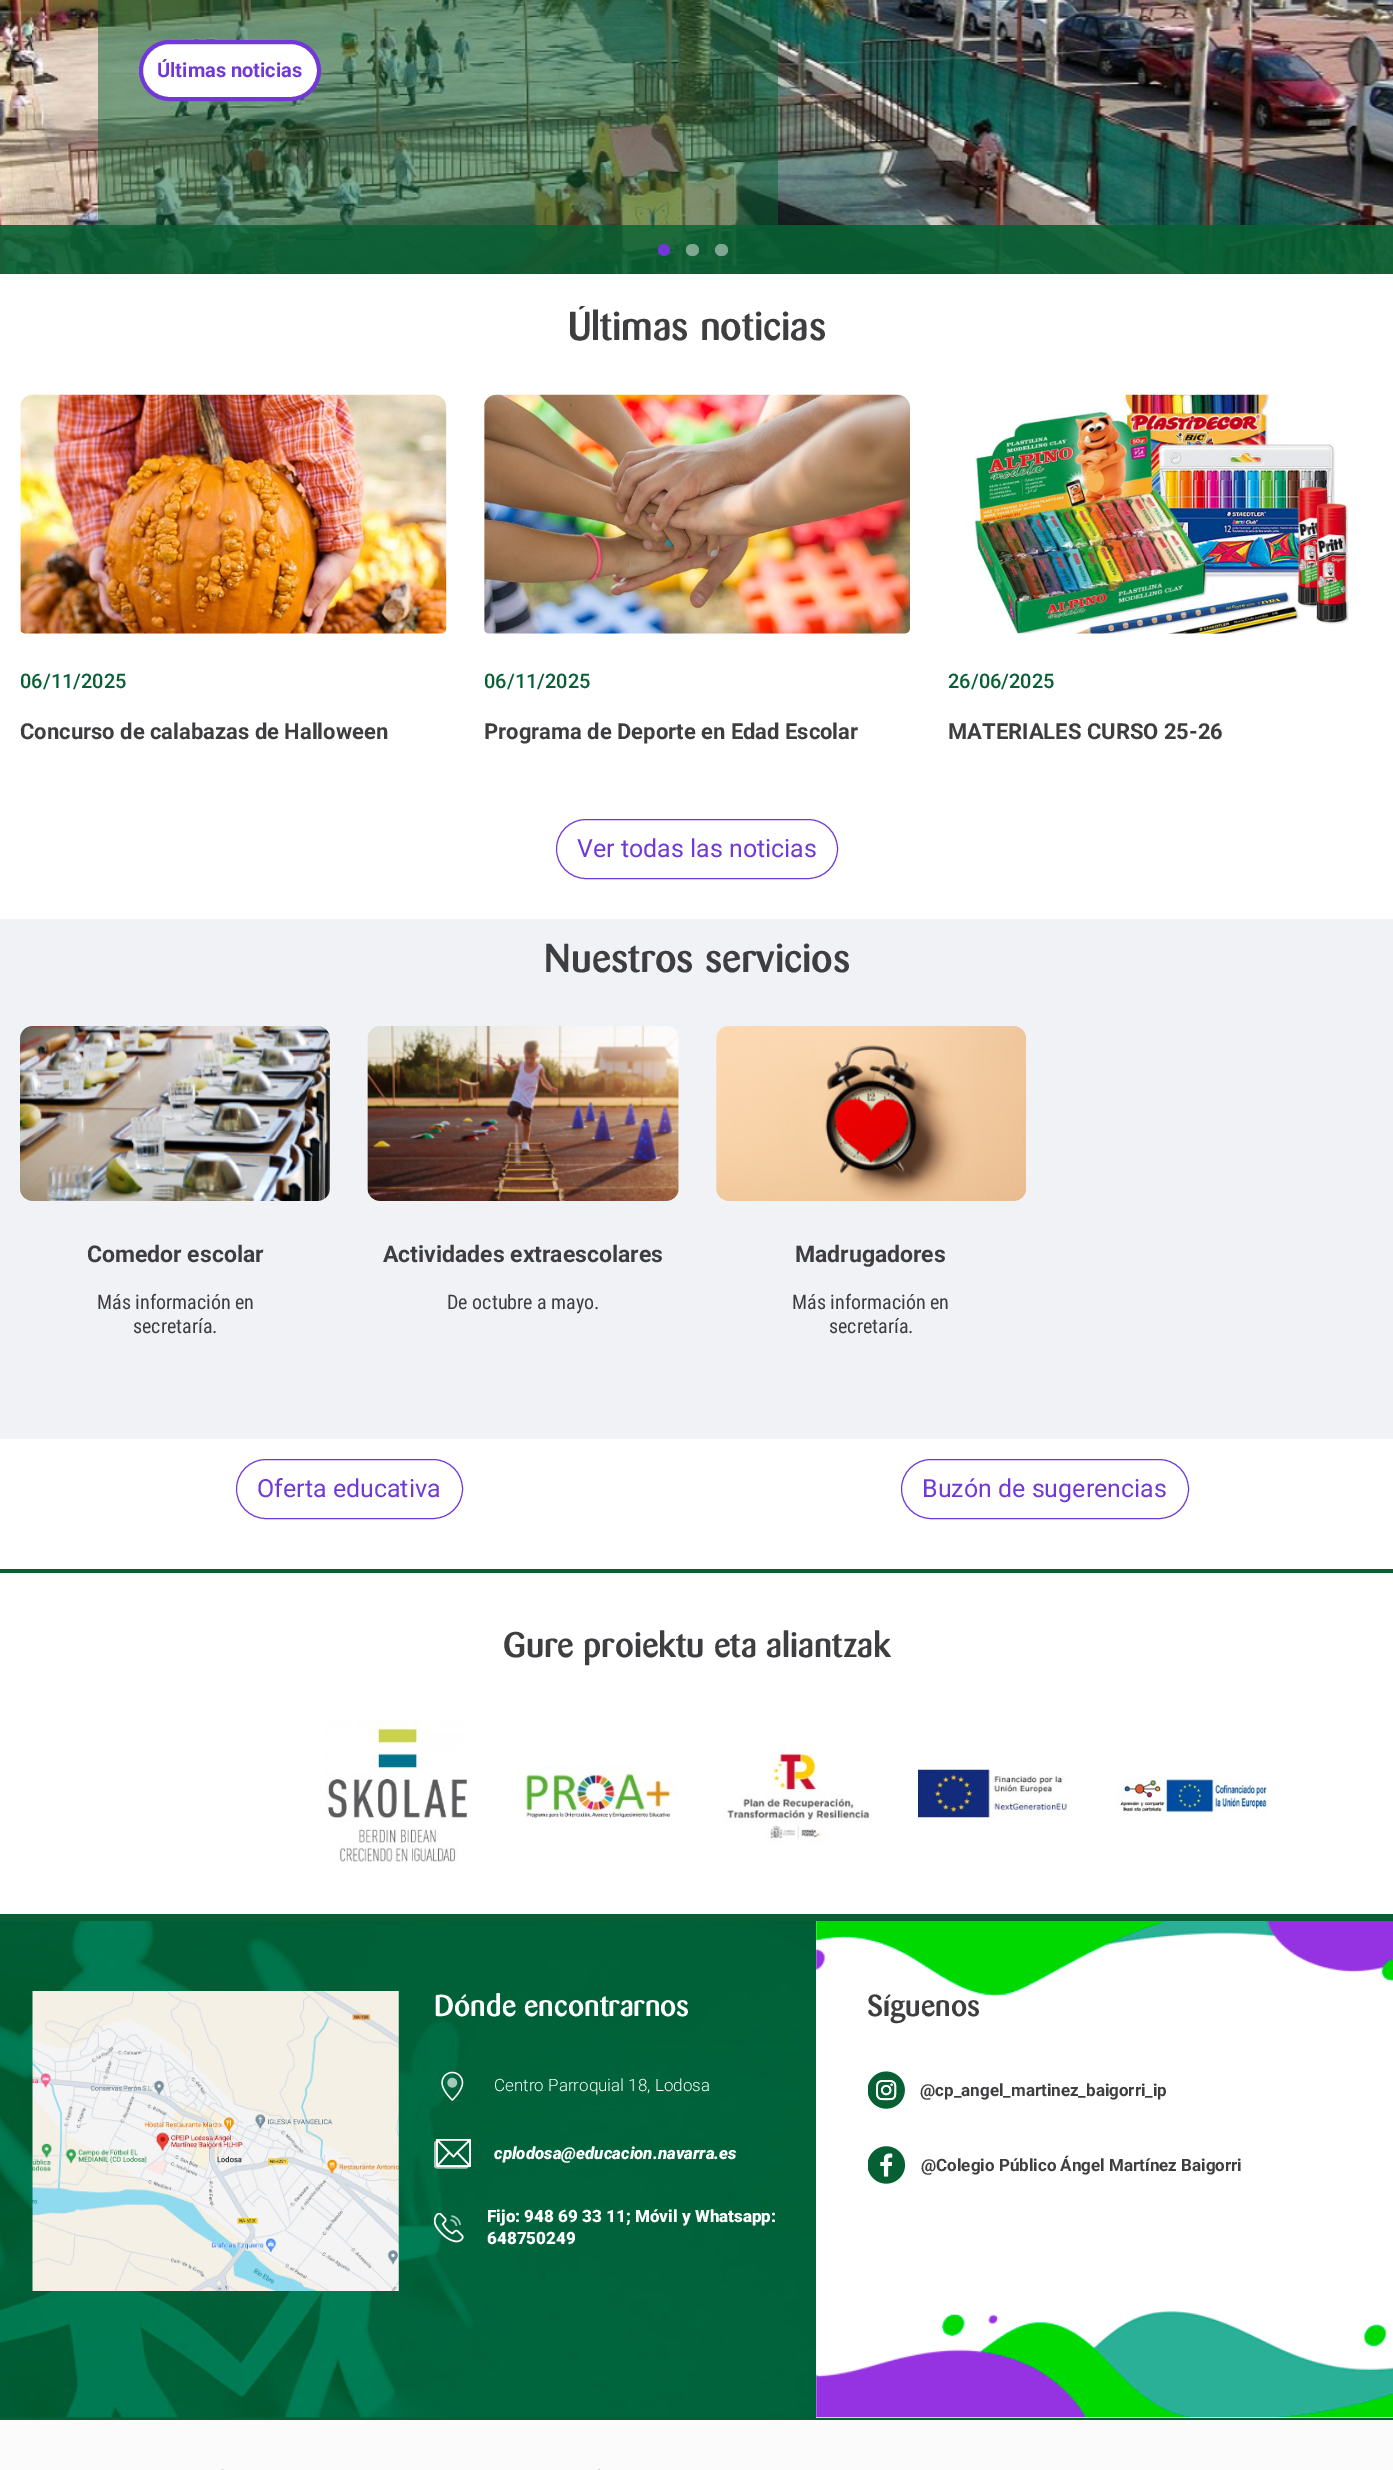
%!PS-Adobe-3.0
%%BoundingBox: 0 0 1393 2470
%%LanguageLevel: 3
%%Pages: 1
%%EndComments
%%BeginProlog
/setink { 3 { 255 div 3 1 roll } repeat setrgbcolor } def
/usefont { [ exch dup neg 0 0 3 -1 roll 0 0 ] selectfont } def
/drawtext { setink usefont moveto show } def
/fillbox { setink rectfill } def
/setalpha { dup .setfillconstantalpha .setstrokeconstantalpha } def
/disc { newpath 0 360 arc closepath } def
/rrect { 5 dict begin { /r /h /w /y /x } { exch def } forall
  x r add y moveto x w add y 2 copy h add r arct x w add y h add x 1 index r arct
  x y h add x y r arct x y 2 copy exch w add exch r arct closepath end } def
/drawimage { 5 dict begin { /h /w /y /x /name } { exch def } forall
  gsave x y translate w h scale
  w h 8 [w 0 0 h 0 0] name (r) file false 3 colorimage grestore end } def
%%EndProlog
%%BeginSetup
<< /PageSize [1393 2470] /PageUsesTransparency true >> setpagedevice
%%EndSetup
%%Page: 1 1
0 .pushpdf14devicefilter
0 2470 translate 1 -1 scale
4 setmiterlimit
0 0 1393 2470 255 255 255 fillbox
(assets/img1.rgb) 0 0 1393 274 drawimage
0.5 setalpha
98 0 680 225 7 96 51 fillbox
1 setalpha
255 255 255 setink
141 42 178 57 28.5 rrect gsave fill grestore
113 56 215 setink
4 setlinewidth
stroke
(Últimas noticias) 157 77 /Roboto-Bold 20 113 56 215 drawtext
0.9 setalpha
0 225 1393 49 7 96 51 fillbox
1 setalpha
113 56 215 setink
664 250 6 disc fill
0.5 setalpha
237 237 237 setink
686 244 13 12 6 rrect fill
715 244 13 12 6 rrect fill
gsave
20 306 1354 593 rectclip
1 setalpha
(Últimas noticias) 568 340 /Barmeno-Medium 40 62 62 64 drawtext
grestore
1 setalpha
(assets/img2.rgb) 20 394 427 240 drawimage
(06/11/2025) 20 688 /Roboto-Medium 20 7 96 51 drawtext
(Concurso de calabazas de Halloween) 20 739 /Roboto-Bold 22 62 62 64 drawtext
(assets/img3.rgb) 484 394 426 240 drawimage
(06/11/2025) 484 688 /Roboto-Medium 20 7 96 51 drawtext
(Programa de Deporte en Edad Escolar) 484 739 /Roboto-Bold 22 62 62 64 drawtext
(assets/img4.rgb) 974 394 375 240 drawimage
(26/06/2025) 948 688 /Roboto-Medium 20 7 96 51 drawtext
(MATERIALES CURSO 25-26) 948 739 /Roboto-Bold 22 62 62 64 drawtext
113 56 215 setink
1 setlinewidth
556.5 819.5 281 59 29.5 rrect stroke
(Ver todas las noticias) 577 857 /Roboto-Regular 25 113 56 215 drawtext
0 919 1393 520 241 242 245 fillbox
(Nuestros servicios) 544 972 /Barmeno-Medium 40 62 62 64 drawtext
(assets/img5.rgb) 20 1026 310 175 drawimage
(Comedor escolar) 87 1262 /Roboto-Bold 23 62 62 64 drawtext
(Más información en) 97 1309 /RobotoCondensed-Regular 20 62 62 64 drawtext
(secretaría.) 133 1333 /RobotoCondensed-Regular 20 62 62 64 drawtext
(assets/img6.rgb) 367 1026 312 175 drawimage
(Actividades extraescolares) 383 1262 /Roboto-Bold 23 62 62 64 drawtext
(De octubre a mayo.) 447 1309 /RobotoCondensed-Regular 20 62 62 64 drawtext
(assets/img7.rgb) 716 1026 310 175 drawimage
(Madrugadores) 795 1262 /Roboto-Bold 23 62 62 64 drawtext
(Más información en) 792 1309 /RobotoCondensed-Regular 20 62 62 64 drawtext
(secretaría.) 829 1333 /RobotoCondensed-Regular 20 62 62 64 drawtext
113 56 215 setink
236.5 1459.5 226 59 29.5 rrect stroke
(Oferta educativa) 257 1497 /Roboto-Regular 25 113 56 215 drawtext
901.5 1459.5 287 59 29.5 rrect stroke
(Buzón de sugerencias) 922 1497 /Roboto-Regular 25 113 56 215 drawtext
0 1569 1393 4 7 96 51 fillbox
(Gure proiektu eta aliantzak) 503 1657 /Barmeno-Medium 35 62 62 64 drawtext
(assets/img8.rgb) 325 1719 144 143 drawimage
(assets/img9.rgb) 516 1766 162 53 drawimage
(assets/img10.rgb) 723 1743 147 100 drawimage
(assets/img11.rgb) 916 1769 158 51 drawimage
(assets/img12.rgb) 1116 1775 153 39 drawimage
0 1914 1393 7 7 96 51 fillbox
0 2417 816 1 0 97 56 fillbox
(assets/img13.rgb) 0 1921 816 497 drawimage
(assets/img14.rgb) 32 1991 367 300 drawimage
(Dónde encontrarnos) 434 2016 /Barmeno-Medium 30 255 255 255 drawtext
(assets/img15.rgb) 441 2071 23 30 drawimage
(Centro Parroquial 18, Lodosa) 494 2091 /Roboto-Light 17 255 255 255 drawtext
(assets/img16.rgb) 434 2139 37 30 drawimage
(cplodosa@educacion.navarra.es) 494 2159 /Roboto-BlackItalic 17 255 255 255 drawtext
(assets/img17.rgb) 434 2213 30 30 drawimage
(Fijo: 948 69 33 11; Móvil y Whatsapp:) 487 2222 /Roboto-Black 17 255 255 255 drawtext
(648750249) 487 2244 /Roboto-Black 17 255 255 255 drawtext
(assets/img18.rgb) 816 1921 577 497 drawimage
(Síguenos) 867 2016 /Barmeno-Medium 30 62 62 64 drawtext
(assets/img19.rgb) 868 2071 37 38 drawimage
(@cp_angel_martinez_baigorri_ip) 920 2096 /Roboto-Bold 17 62 62 64 drawtext
(assets/img20.rgb) 868 2146 38 38 drawimage
(@Colegio Público Ángel Martínez Baigorri) 921 2171 /Roboto-Bold 17 62 62 64 drawtext
0 2420 1393 50 251 251 251 fillbox
0 2418 1393 2 7 96 51 fillbox
(assets/img21.rgb) 221 2469 3 1 drawimage
598 2469 2 1 213 213 213 fillbox
.poppdf14devicefilter showpage
%%EOF
